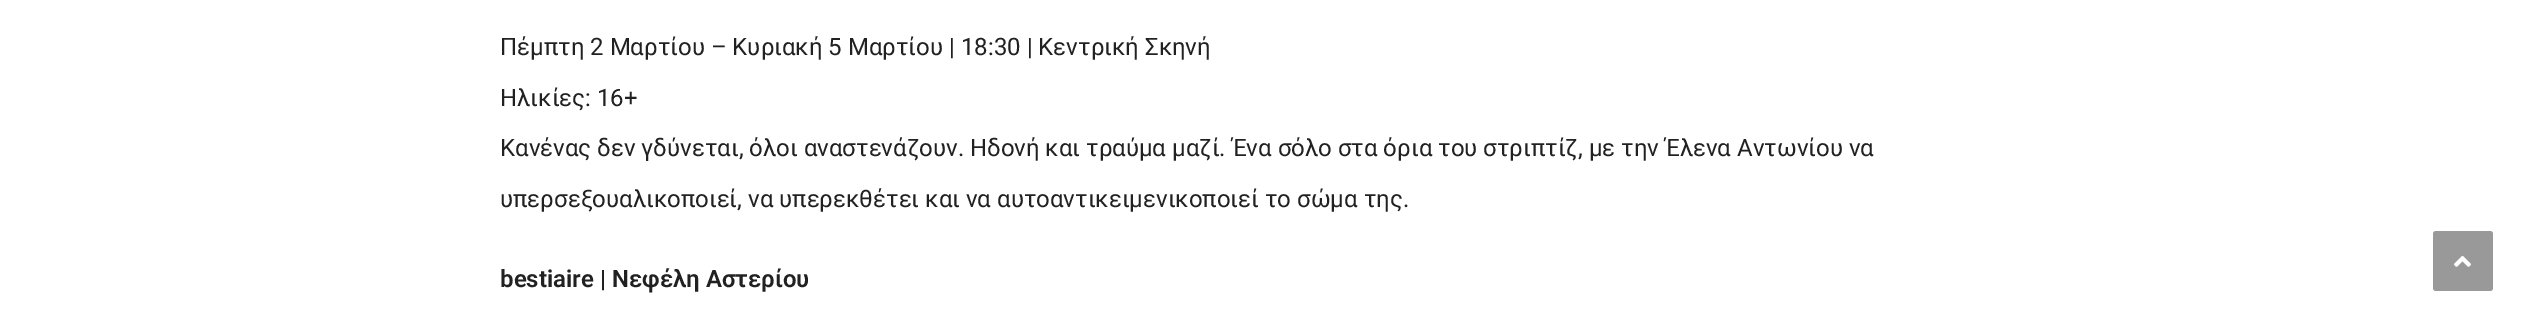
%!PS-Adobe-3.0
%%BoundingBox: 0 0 2523 320
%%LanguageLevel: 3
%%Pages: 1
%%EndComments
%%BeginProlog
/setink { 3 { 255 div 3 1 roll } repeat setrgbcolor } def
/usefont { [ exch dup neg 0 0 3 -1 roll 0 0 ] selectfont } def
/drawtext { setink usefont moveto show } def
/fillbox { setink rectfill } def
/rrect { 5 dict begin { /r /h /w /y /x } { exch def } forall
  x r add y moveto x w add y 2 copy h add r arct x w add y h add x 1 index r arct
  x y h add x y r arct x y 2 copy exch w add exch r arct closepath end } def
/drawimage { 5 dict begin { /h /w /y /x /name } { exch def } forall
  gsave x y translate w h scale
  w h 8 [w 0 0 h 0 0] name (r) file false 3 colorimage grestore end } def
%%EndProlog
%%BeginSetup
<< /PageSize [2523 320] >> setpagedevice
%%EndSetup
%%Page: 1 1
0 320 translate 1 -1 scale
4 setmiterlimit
0 0 2523 320 255 255 255 fillbox
(Πέμπτη 2 Μαρτίου – Κυριακή 5 Μαρτίου | 18:30 | Κεντρική Σκηνή) 500 55 /Roboto-Regular 24 33 33 33 drawtext
(Ηλικίες: 16+) 500 106 /Roboto-Regular 24 33 33 33 drawtext
(Κανένας δεν γδύνεται, όλοι αναστενάζουν. Ηδονή και τραύμα μαζί. Ένα σόλο στα όρια του στριπτίζ, με την Έλενα Αντωνίου να) 500 156 /Roboto-Regular 24 33 33 33 drawtext
(υπερσεξουαλικοποιεί, να υπερεκθέτει και να αυτοαντικειμενικοποιεί το σώμα της.) 500 207 /Roboto-Regular 24 33 33 33 drawtext
(bestiaire | Νεφέλη Αστερίου) 500 287 /Roboto-SemiBold 24 33 33 33 drawtext
153 153 153 setink
2433 231 60 60 3 rrect fill
(assets/img1.rgb) 2454 256 17 11 drawimage
showpage
%%EOF
